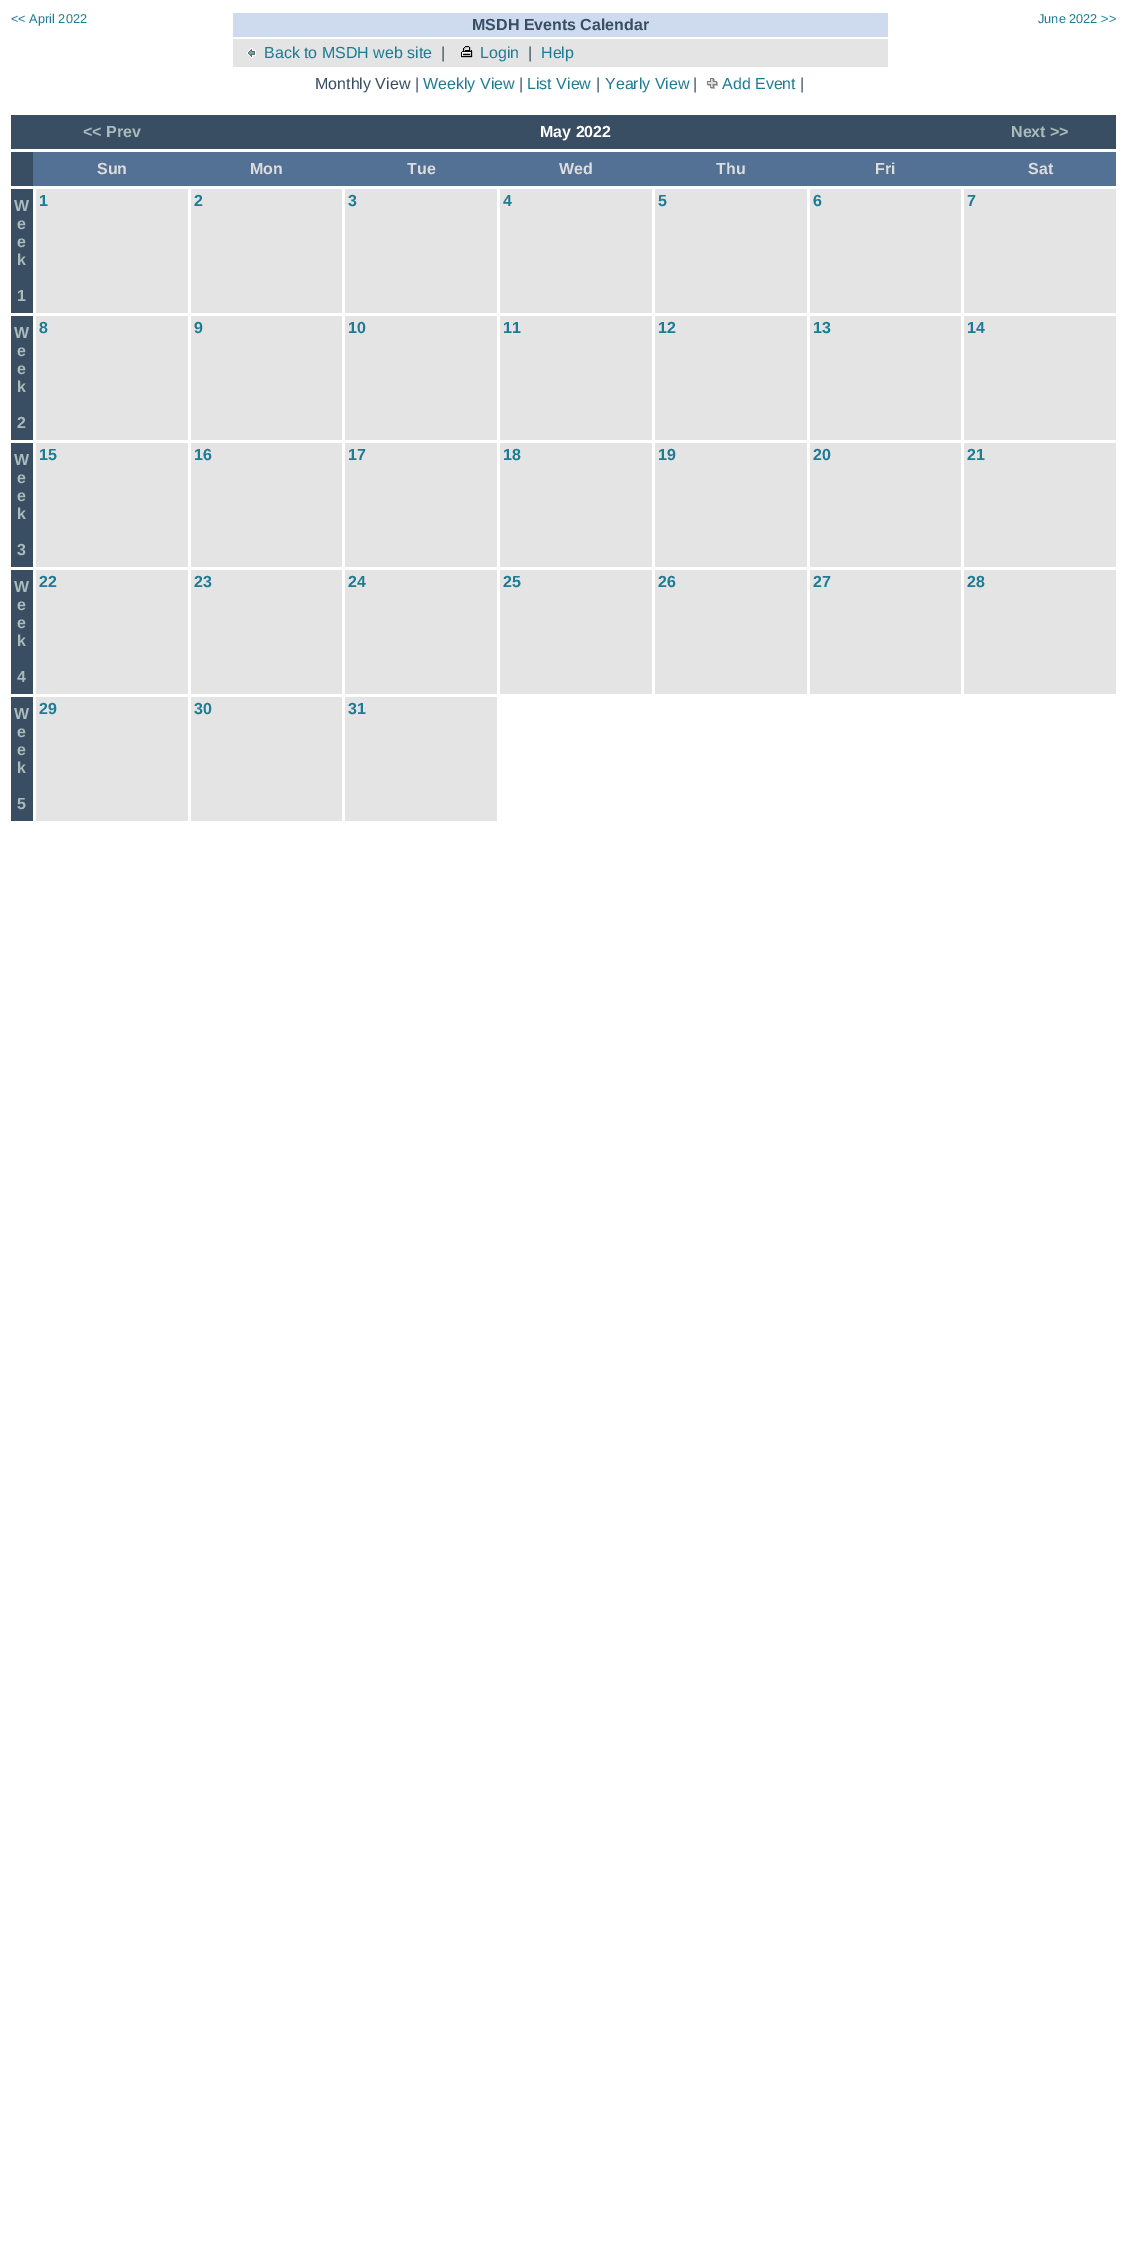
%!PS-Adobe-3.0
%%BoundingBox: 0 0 1127 2247
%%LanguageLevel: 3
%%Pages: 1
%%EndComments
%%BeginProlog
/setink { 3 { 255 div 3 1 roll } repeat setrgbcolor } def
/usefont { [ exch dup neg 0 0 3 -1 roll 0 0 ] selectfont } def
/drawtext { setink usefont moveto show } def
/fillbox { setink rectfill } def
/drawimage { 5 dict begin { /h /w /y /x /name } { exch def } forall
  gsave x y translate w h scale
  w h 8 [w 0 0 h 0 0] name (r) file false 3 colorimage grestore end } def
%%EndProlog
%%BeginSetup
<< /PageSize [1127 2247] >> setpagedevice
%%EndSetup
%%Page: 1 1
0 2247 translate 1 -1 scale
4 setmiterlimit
0 0 1127 2247 255 255 255 fillbox
(<< April 2022) 11 23 /LiberationSans-Regular 12.75 29 123 147 drawtext
233 13 655 24 206 219 239 fillbox
(MSDH Events Calendar) 472 30 /LiberationSans-Bold 16 57 77 99 drawtext
233 39 655 28 228 228 228 fillbox
(assets/img1.rgb) 247 48 9 10 drawimage
(Back to MSDH web site) 264 58 /LiberationSans-Regular 16 29 123 147 drawtext
(|) 441 58 /LiberationSans-Regular 16 57 77 99 drawtext
(assets/img2.rgb) 461 46 12 12 drawimage
(Login) 480 58 /LiberationSans-Regular 16 29 123 147 drawtext
(|) 528 58 /LiberationSans-Regular 16 57 77 99 drawtext
(Help) 541 58 /LiberationSans-Regular 16 29 123 147 drawtext
(June 2022 >>) 1038 23 /LiberationSans-Regular 12.75 29 123 147 drawtext
(Monthly View |) 315 89 /LiberationSans-Regular 16 57 77 99 drawtext
(Weekly View) 423 89 /LiberationSans-Regular 16 29 123 147 drawtext
(|) 519 89 /LiberationSans-Regular 16 57 77 99 drawtext
(List View) 527 89 /LiberationSans-Regular 16 29 123 147 drawtext
(|) 596 89 /LiberationSans-Regular 16 57 77 99 drawtext
(Yearly View) 605 89 /LiberationSans-Regular 16 29 123 147 drawtext
(|) 693 89 /LiberationSans-Regular 16 57 77 99 drawtext
(assets/img3.rgb) 707 78 11 11 drawimage
(Add Event) 722 89 /LiberationSans-Regular 16 29 123 147 drawtext
(|) 800 89 /LiberationSans-Regular 16 57 77 99 drawtext
11 115 1105 34 57 77 99 fillbox
(<< Prev) 83 137 /LiberationSans-Bold 16 170 187 187 drawtext
(May 2022) 540 137 /LiberationSans-Bold 16 255 255 255 drawtext
(Next >>) 1011 137 /LiberationSans-Bold 16 170 187 187 drawtext
33 152 1083 34 82 113 148 fillbox
11 152 22 34 57 77 99 fillbox
(Sun) 97 174 /LiberationSans-Bold 16 221 221 221 drawtext
(Mon) 250 174 /LiberationSans-Bold 16 221 221 221 drawtext
(Tue) 407 174 /LiberationSans-Bold 16 221 221 221 drawtext
(Wed) 559 174 /LiberationSans-Bold 16 221 221 221 drawtext
(Thu) 716 174 /LiberationSans-Bold 16 221 221 221 drawtext
(Fri) 875 174 /LiberationSans-Bold 16 221 221 221 drawtext
(Sat) 1028 174 /LiberationSans-Bold 16 221 221 221 drawtext
11 189 22 124 57 77 99 fillbox
(W) 14 211 /LiberationSans-Bold 16 170 187 187 drawtext
(e) 17 229 /LiberationSans-Bold 16 170 187 187 drawtext
(e) 17 247 /LiberationSans-Bold 16 170 187 187 drawtext
(k) 17 265 /LiberationSans-Bold 16 170 187 187 drawtext
(1) 17 301 /LiberationSans-Bold 16 170 187 187 drawtext
36 189 152 124 228 228 228 fillbox
(1) 39 206 /LiberationSans-Bold 16 29 123 147 drawtext
191 189 151 124 228 228 228 fillbox
(2) 194 206 /LiberationSans-Bold 16 29 123 147 drawtext
345 189 152 124 228 228 228 fillbox
(3) 348 206 /LiberationSans-Bold 16 29 123 147 drawtext
500 189 152 124 228 228 228 fillbox
(4) 503 206 /LiberationSans-Bold 16 29 123 147 drawtext
655 189 152 124 228 228 228 fillbox
(5) 658 206 /LiberationSans-Bold 16 29 123 147 drawtext
810 189 151 124 228 228 228 fillbox
(6) 813 206 /LiberationSans-Bold 16 29 123 147 drawtext
964 189 152 124 228 228 228 fillbox
(7) 967 206 /LiberationSans-Bold 16 29 123 147 drawtext
11 316 22 124 57 77 99 fillbox
(W) 14 338 /LiberationSans-Bold 16 170 187 187 drawtext
(e) 17 356 /LiberationSans-Bold 16 170 187 187 drawtext
(e) 17 374 /LiberationSans-Bold 16 170 187 187 drawtext
(k) 17 392 /LiberationSans-Bold 16 170 187 187 drawtext
(2) 17 428 /LiberationSans-Bold 16 170 187 187 drawtext
36 316 152 124 228 228 228 fillbox
(8) 39 333 /LiberationSans-Bold 16 29 123 147 drawtext
191 316 151 124 228 228 228 fillbox
(9) 194 333 /LiberationSans-Bold 16 29 123 147 drawtext
345 316 152 124 228 228 228 fillbox
(10) 348 333 /LiberationSans-Bold 16 29 123 147 drawtext
500 316 152 124 228 228 228 fillbox
(11) 503 333 /LiberationSans-Bold 16 29 123 147 drawtext
655 316 152 124 228 228 228 fillbox
(12) 658 333 /LiberationSans-Bold 16 29 123 147 drawtext
810 316 151 124 228 228 228 fillbox
(13) 813 333 /LiberationSans-Bold 16 29 123 147 drawtext
964 316 152 124 228 228 228 fillbox
(14) 967 333 /LiberationSans-Bold 16 29 123 147 drawtext
11 443 22 124 57 77 99 fillbox
(W) 14 465 /LiberationSans-Bold 16 170 187 187 drawtext
(e) 17 483 /LiberationSans-Bold 16 170 187 187 drawtext
(e) 17 501 /LiberationSans-Bold 16 170 187 187 drawtext
(k) 17 519 /LiberationSans-Bold 16 170 187 187 drawtext
(3) 17 555 /LiberationSans-Bold 16 170 187 187 drawtext
36 443 152 124 228 228 228 fillbox
(15) 39 460 /LiberationSans-Bold 16 29 123 147 drawtext
191 443 151 124 228 228 228 fillbox
(16) 194 460 /LiberationSans-Bold 16 29 123 147 drawtext
345 443 152 124 228 228 228 fillbox
(17) 348 460 /LiberationSans-Bold 16 29 123 147 drawtext
500 443 152 124 228 228 228 fillbox
(18) 503 460 /LiberationSans-Bold 16 29 123 147 drawtext
655 443 152 124 228 228 228 fillbox
(19) 658 460 /LiberationSans-Bold 16 29 123 147 drawtext
810 443 151 124 228 228 228 fillbox
(20) 813 460 /LiberationSans-Bold 16 29 123 147 drawtext
964 443 152 124 228 228 228 fillbox
(21) 967 460 /LiberationSans-Bold 16 29 123 147 drawtext
11 570 22 124 57 77 99 fillbox
(W) 14 592 /LiberationSans-Bold 16 170 187 187 drawtext
(e) 17 610 /LiberationSans-Bold 16 170 187 187 drawtext
(e) 17 628 /LiberationSans-Bold 16 170 187 187 drawtext
(k) 17 646 /LiberationSans-Bold 16 170 187 187 drawtext
(4) 17 682 /LiberationSans-Bold 16 170 187 187 drawtext
36 570 152 124 228 228 228 fillbox
(22) 39 587 /LiberationSans-Bold 16 29 123 147 drawtext
191 570 151 124 228 228 228 fillbox
(23) 194 587 /LiberationSans-Bold 16 29 123 147 drawtext
345 570 152 124 228 228 228 fillbox
(24) 348 587 /LiberationSans-Bold 16 29 123 147 drawtext
500 570 152 124 228 228 228 fillbox
(25) 503 587 /LiberationSans-Bold 16 29 123 147 drawtext
655 570 152 124 228 228 228 fillbox
(26) 658 587 /LiberationSans-Bold 16 29 123 147 drawtext
810 570 151 124 228 228 228 fillbox
(27) 813 587 /LiberationSans-Bold 16 29 123 147 drawtext
964 570 152 124 228 228 228 fillbox
(28) 967 587 /LiberationSans-Bold 16 29 123 147 drawtext
11 697 22 124 57 77 99 fillbox
(W) 14 719 /LiberationSans-Bold 16 170 187 187 drawtext
(e) 17 737 /LiberationSans-Bold 16 170 187 187 drawtext
(e) 17 755 /LiberationSans-Bold 16 170 187 187 drawtext
(k) 17 773 /LiberationSans-Bold 16 170 187 187 drawtext
(5) 17 809 /LiberationSans-Bold 16 170 187 187 drawtext
36 697 152 124 228 228 228 fillbox
(29) 39 714 /LiberationSans-Bold 16 29 123 147 drawtext
191 697 151 124 228 228 228 fillbox
(30) 194 714 /LiberationSans-Bold 16 29 123 147 drawtext
345 697 152 124 228 228 228 fillbox
(31) 348 714 /LiberationSans-Bold 16 29 123 147 drawtext
showpage
%%EOF
